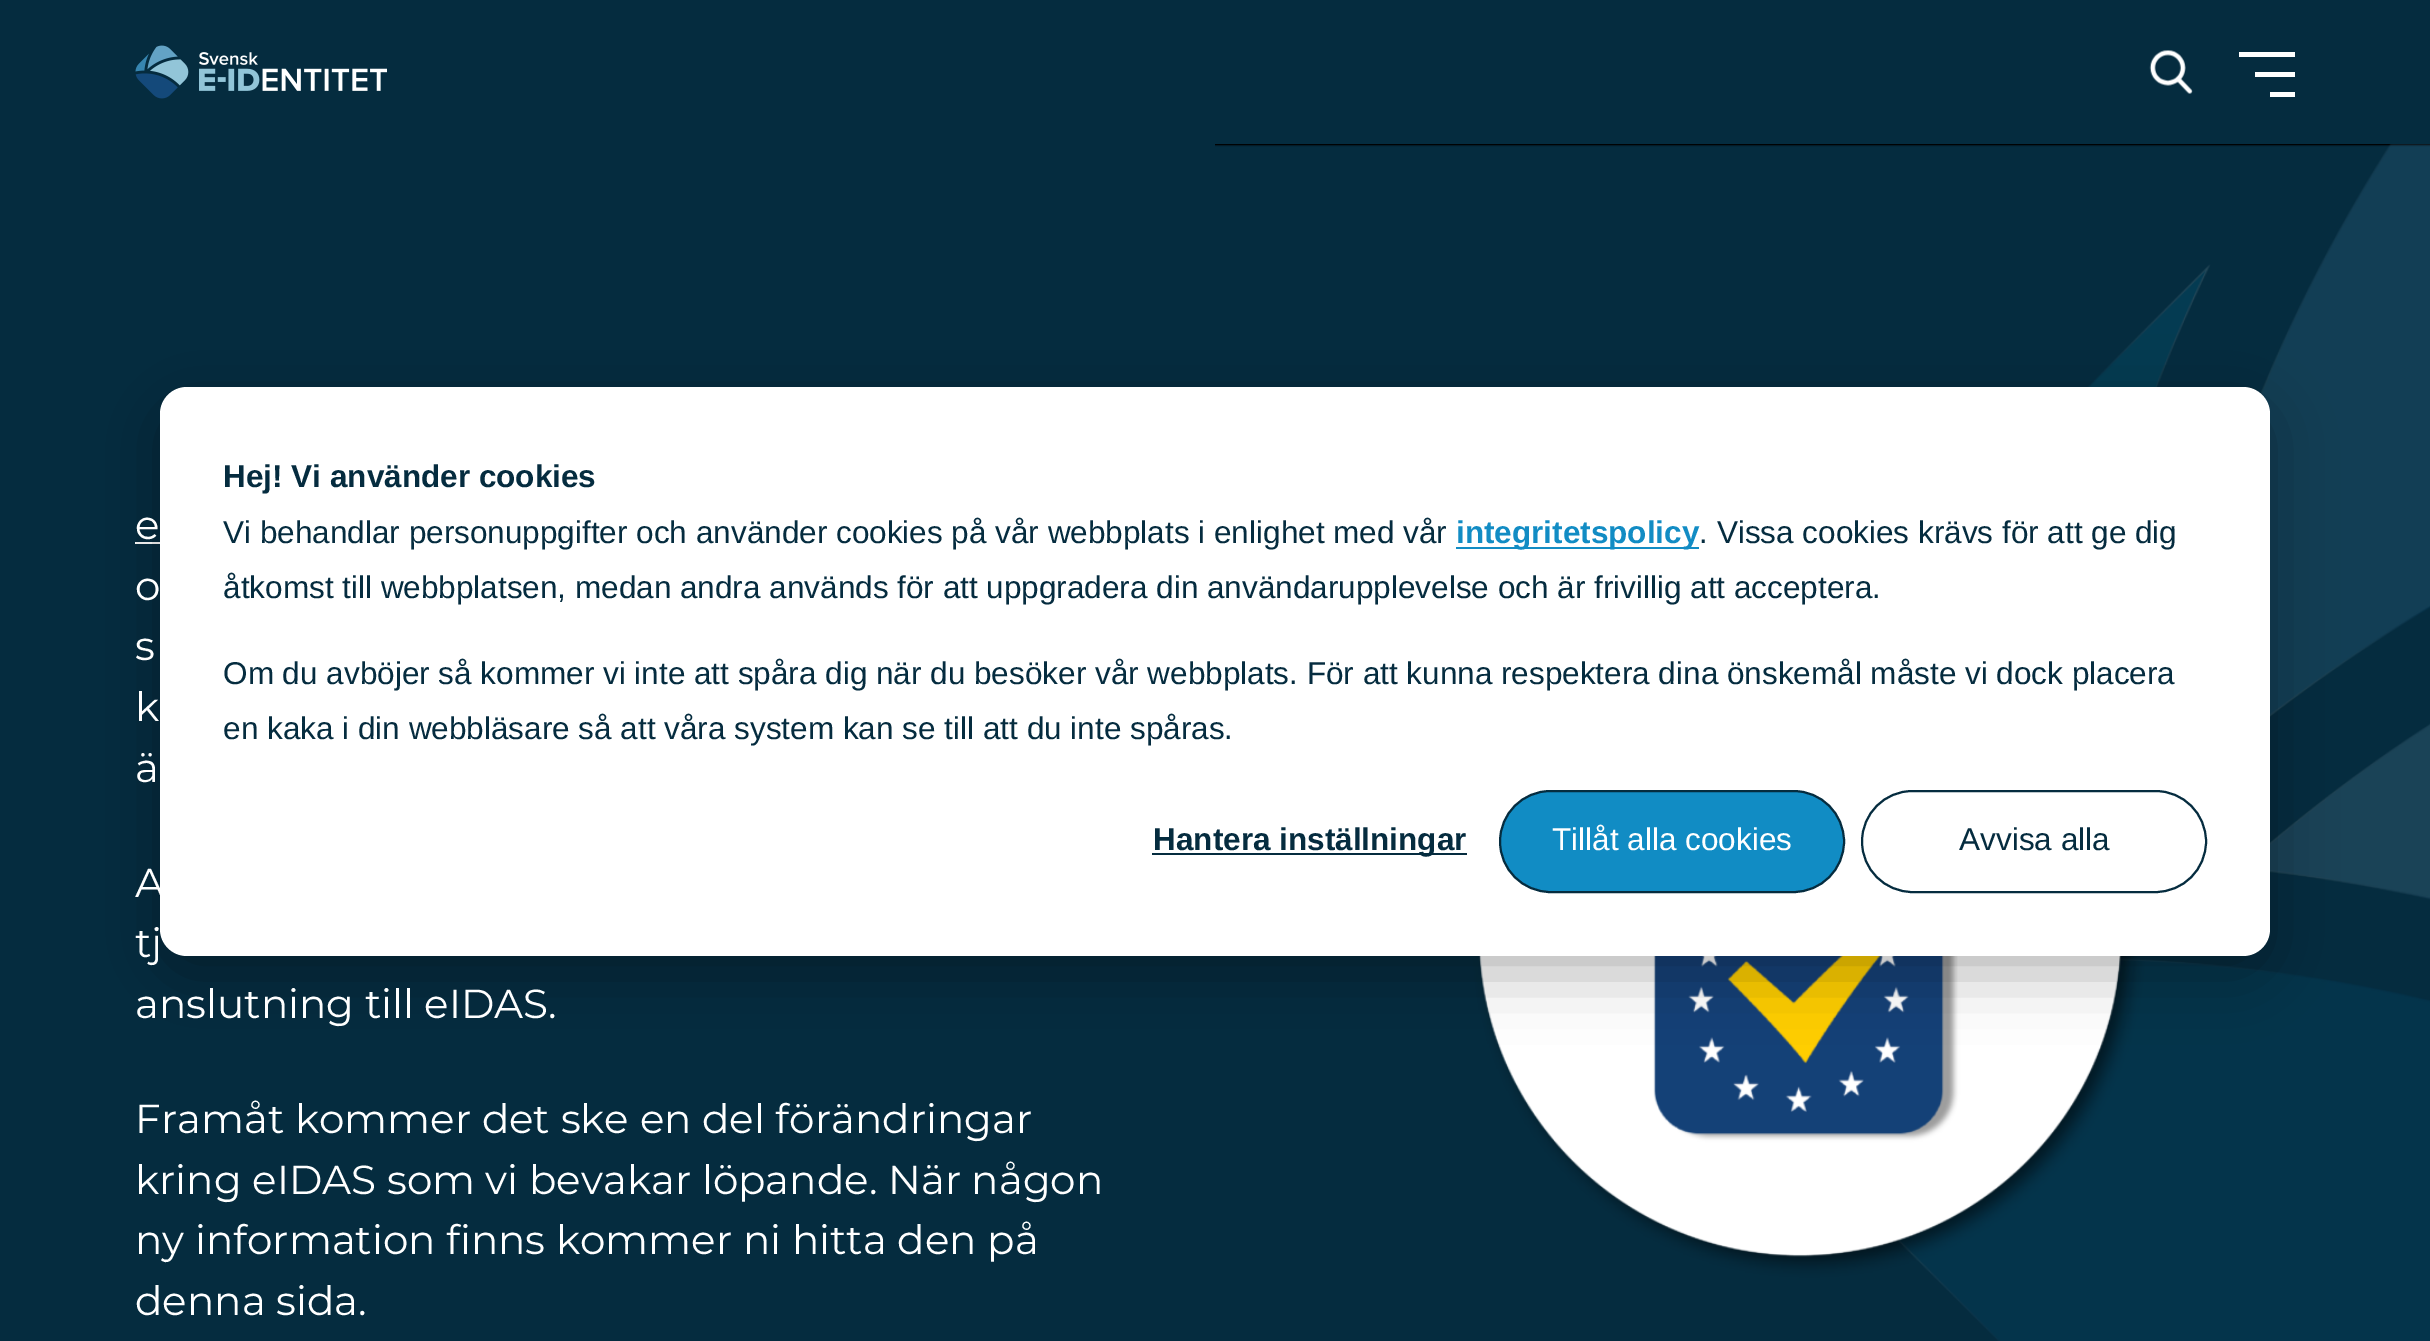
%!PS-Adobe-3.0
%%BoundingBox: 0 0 2430 1341
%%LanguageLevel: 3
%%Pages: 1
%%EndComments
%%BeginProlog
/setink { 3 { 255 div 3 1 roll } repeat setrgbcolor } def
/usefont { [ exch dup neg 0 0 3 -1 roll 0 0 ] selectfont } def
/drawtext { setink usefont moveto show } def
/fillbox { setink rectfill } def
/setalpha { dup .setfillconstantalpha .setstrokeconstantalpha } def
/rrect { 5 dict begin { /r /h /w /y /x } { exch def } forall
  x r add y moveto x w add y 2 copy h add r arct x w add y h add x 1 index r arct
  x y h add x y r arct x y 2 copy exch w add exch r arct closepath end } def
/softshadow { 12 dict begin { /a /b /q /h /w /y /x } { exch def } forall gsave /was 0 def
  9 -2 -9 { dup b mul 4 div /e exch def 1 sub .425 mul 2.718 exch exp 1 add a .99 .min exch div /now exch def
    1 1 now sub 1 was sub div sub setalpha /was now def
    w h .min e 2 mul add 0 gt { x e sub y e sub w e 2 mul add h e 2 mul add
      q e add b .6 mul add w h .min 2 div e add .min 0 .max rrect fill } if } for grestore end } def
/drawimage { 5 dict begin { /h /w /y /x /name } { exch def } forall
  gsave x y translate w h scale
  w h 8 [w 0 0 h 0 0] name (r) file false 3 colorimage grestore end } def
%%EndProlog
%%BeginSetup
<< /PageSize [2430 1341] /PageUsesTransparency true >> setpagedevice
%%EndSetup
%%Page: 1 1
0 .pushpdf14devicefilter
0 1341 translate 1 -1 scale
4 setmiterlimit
0 0 2430 1341 5 44 63 fillbox
(assets/img1.rgb) 135 45 252 54 drawimage
(assets/img2.rgb) 2149 50 44 44 drawimage
2239 52 56 5 255 255 255 fillbox
2255 72 40 5 255 255 255 fillbox
2270 92 25 5 255 255 255 fillbox
135 542 25 2 255 255 255 fillbox
(assets/img3.rgb) 1215 144 1215 1197 drawimage
0 0 0 setink
160 405 2110 569 27 31.5 0.28 softshadow
255 255 255 setink
160 387 2110 569 27 rrect fill
(Hej! Vi använder cookies) 223 487 /LiberationSans-Bold 31.5 5 44 63 drawtext
(Vi behandlar personuppgifter och använder cookies på vår webbplats i enlighet med vår) 223 543 /LiberationSans-Regular 31.5 5 44 63 drawtext
1456 547 243 2 18 140 196 fillbox
(integritetspolicy) 1456 543 /LiberationSans-Bold 31.5 18 140 196 drawtext
(. Vissa cookies krävs för att ge dig) 1699 543 /LiberationSans-Regular 31.5 5 44 63 drawtext
(åtkomst till webbplatsen, medan andra används för att uppgradera din användarupplevelse och är frivillig att acceptera.) 223 598 /LiberationSans-Regular 31.5 5 44 63 drawtext
(Om du avböjer så kommer vi inte att spåra dig när du besöker vår webbplats. För att kunna respektera dina önskemål måste vi dock placera) 223 684 /LiberationSans-Regular 31.5 5 44 63 drawtext
(en kaka i din webbläsare så att våra system kan se till att du inte spåras.) 223 739 /LiberationSans-Regular 31.5 5 44 63 drawtext
1152 853 315 2 5 44 63 fillbox
(Hantera inställningar) 1153 850 /LiberationSans-Bold 31.5 5 44 63 drawtext
17 140 196 setink
1500 791 344 101 50.5 rrect gsave fill grestore
5 44 63 setink
2 setlinewidth
stroke
(Tillåt alla cookies) 1552 850 /LiberationSans-Regular 31.5 255 255 255 drawtext
5 44 63 setink
1862 791 344 101 50.5 rrect stroke
(Avvisa alla) 1959 850 /LiberationSans-Regular 31.5 5 44 63 drawtext
(e) 135 539 /Montserrat-Regular 40.5 255 255 255 drawtext
(o) 135 600 /Montserrat-Regular 40.5 255 255 255 drawtext
(s) 135 660 /Montserrat-Regular 40.5 255 255 255 drawtext
(k) 135 721 /Montserrat-Regular 40.5 255 255 255 drawtext
(ä) 135 782 /Montserrat-Regular 40.5 255 255 255 drawtext
(A) 135 897 /Montserrat-Regular 40.5 255 255 255 drawtext
(tj) 135 957 /Montserrat-Regular 40.5 255 255 255 drawtext
(anslutning till eIDAS.) 135 1018 /Montserrat-Regular 40.5 255 255 255 drawtext
(Framåt kommer det ske en del förändringar) 135 1133 /Montserrat-Regular 40.5 255 255 255 drawtext
(kring eIDAS som vi bevakar löpande. När någon) 135 1194 /Montserrat-Regular 40.5 255 255 255 drawtext
(ny information finns kommer ni hitta den på) 135 1254 /Montserrat-Regular 40.5 255 255 255 drawtext
(denna sida.) 135 1315 /Montserrat-Regular 40.5 255 255 255 drawtext
.poppdf14devicefilter showpage
%%EOF
